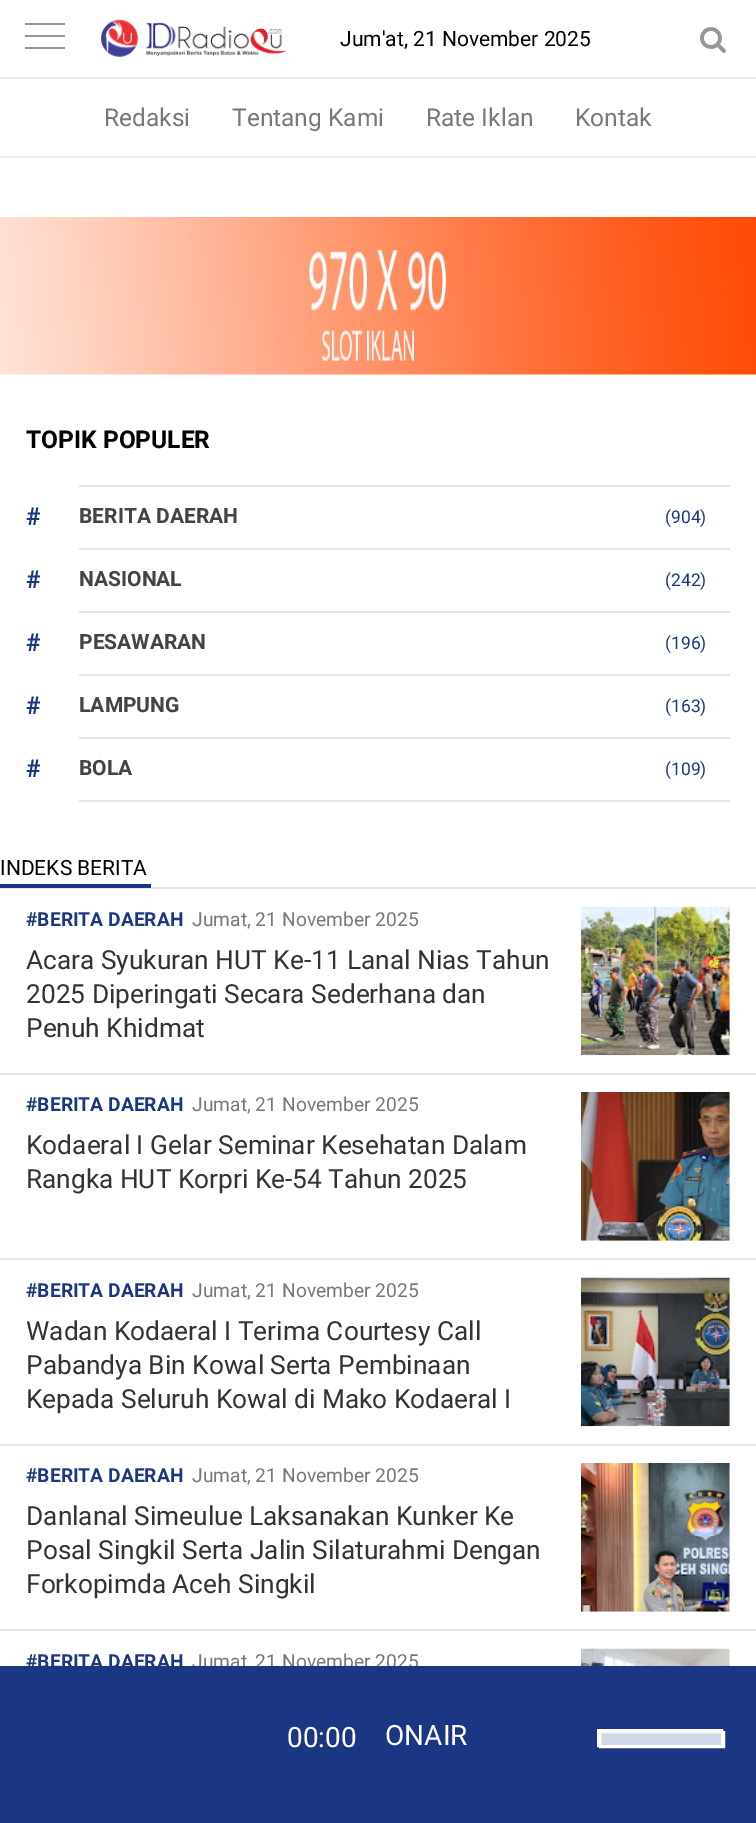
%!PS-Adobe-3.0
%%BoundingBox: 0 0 756 1823
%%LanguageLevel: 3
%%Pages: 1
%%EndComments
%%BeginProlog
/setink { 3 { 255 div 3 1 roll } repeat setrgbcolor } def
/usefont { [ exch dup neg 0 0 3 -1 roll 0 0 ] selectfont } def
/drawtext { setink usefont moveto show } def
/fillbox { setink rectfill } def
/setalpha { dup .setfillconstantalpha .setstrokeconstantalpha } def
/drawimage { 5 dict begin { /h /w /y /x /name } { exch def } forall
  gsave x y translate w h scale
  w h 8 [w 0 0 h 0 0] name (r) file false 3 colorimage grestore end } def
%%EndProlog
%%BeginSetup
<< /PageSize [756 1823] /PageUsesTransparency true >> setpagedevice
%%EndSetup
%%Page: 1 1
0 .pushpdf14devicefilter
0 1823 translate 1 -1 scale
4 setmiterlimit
0 0 756 1823 255 255 255 fillbox
0 156 756 2 237 237 237 fillbox
25 23 40 2 151 151 151 fillbox
25 35 40 2 151 151 151 fillbox
25 47 40 2 151 151 151 fillbox
(assets/img1.rgb) 101 19 186 38 drawimage
(Jum'at, 21 November 2025) 340 46 /Roboto-Regular 21 0 0 0 drawtext
(assets/img2.rgb) 700 27 26 26 drawimage
0 77 756 2 238 238 238 fillbox
(Redaksi) 104 126 /Roboto-Regular 24.5 120 120 120 drawtext
(Tentang Kami) 232 126 /Roboto-Regular 24.5 120 120 120 drawtext
(Rate Iklan) 426 126 /Roboto-Regular 24.5 120 120 120 drawtext
(Kontak) 575 126 /Roboto-Regular 24.5 120 120 120 drawtext
(assets/img3.rgb) 0 217 756 158 drawimage
(TOPIK POPULER) 26 448 /Roboto-Bold 24.5 0 0 0 drawtext
79 485 651 2 229 229 229 fillbox
(#) 26 525 /Roboto-Bold 24.5 27 54 130 drawtext
(BERITA DAERAH) 79 523 /Roboto-Bold 21 68 68 68 drawtext
(\(904\)) 665 523 /Roboto-Regular 17.5 27 54 130 drawtext
79 548 651 2 229 229 229 fillbox
(#) 26 588 /Roboto-Bold 24.5 27 54 130 drawtext
(NASIONAL) 79 586 /Roboto-Bold 21 68 68 68 drawtext
(\(242\)) 665 586 /Roboto-Regular 17.5 27 54 130 drawtext
79 611 651 2 229 229 229 fillbox
(#) 26 651 /Roboto-Bold 24.5 27 54 130 drawtext
(PESAWARAN) 79 649 /Roboto-Bold 21 68 68 68 drawtext
(\(196\)) 665 649 /Roboto-Regular 17.5 27 54 130 drawtext
79 674 651 2 229 229 229 fillbox
(#) 26 714 /Roboto-Bold 24.5 27 54 130 drawtext
(LAMPUNG) 79 712 /Roboto-Bold 21 68 68 68 drawtext
(\(163\)) 665 712 /Roboto-Regular 17.5 27 54 130 drawtext
79 737 651 2 229 229 229 fillbox
(#) 26 777 /Roboto-Bold 24.5 27 54 130 drawtext
(BOLA) 79 775 /Roboto-Bold 21 68 68 68 drawtext
(\(109\)) 665 775 /Roboto-Regular 17.5 27 54 130 drawtext
79 800 651 2 229 229 229 fillbox
(INDEKS BERITA) 0 875 /Roboto-Regular 21 0 0 0 drawtext
0 887 756 2 229 229 229 fillbox
0 884 151 4 27 54 130 fillbox
(#BERITA DAERAH) 26 926 /Roboto-Bold 19.25 27 54 130 drawtext
(Jumat, 21 November 2025) 192 926 /Roboto-Regular 19.25 120 120 120 drawtext
(assets/img4.rgb) 581 906 149 150 drawimage
(Acara Syukuran HUT Ke-11 Lanal Nias Tahun) 26 969 /Roboto-Regular 26.25 51 51 51 drawtext
(2025 Diperingati Secara Sederhana dan) 26 1003 /Roboto-Regular 26.25 51 51 51 drawtext
(Penuh Khidmat) 26 1037 /Roboto-Regular 26.25 51 51 51 drawtext
0 1073 756 2 229 229 229 fillbox
(#BERITA DAERAH) 26 1111 /Roboto-Bold 19.25 27 54 130 drawtext
(Jumat, 21 November 2025) 192 1111 /Roboto-Regular 19.25 120 120 120 drawtext
(assets/img5.rgb) 581 1092 149 149 drawimage
(Kodaeral I Gelar Seminar Kesehatan Dalam) 26 1154 /Roboto-Regular 26.25 51 51 51 drawtext
(Rangka HUT Korpri Ke-54 Tahun 2025) 26 1188 /Roboto-Regular 26.25 51 51 51 drawtext
0 1258 756 2 229 229 229 fillbox
(#BERITA DAERAH) 26 1297 /Roboto-Bold 19.25 27 54 130 drawtext
(Jumat, 21 November 2025) 192 1297 /Roboto-Regular 19.25 120 120 120 drawtext
(assets/img6.rgb) 581 1277 149 150 drawimage
(Wadan Kodaeral I Terima Courtesy Call) 26 1340 /Roboto-Regular 26.25 51 51 51 drawtext
(Pabandya Bin Kowal Serta Pembinaan) 26 1374 /Roboto-Regular 26.25 51 51 51 drawtext
(Kepada Seluruh Kowal di Mako Kodaeral I) 26 1408 /Roboto-Regular 26.25 51 51 51 drawtext
0 1444 756 2 229 229 229 fillbox
(#BERITA DAERAH) 26 1482 /Roboto-Bold 19.25 27 54 130 drawtext
(Jumat, 21 November 2025) 192 1482 /Roboto-Regular 19.25 120 120 120 drawtext
(assets/img7.rgb) 581 1463 149 149 drawimage
(Danlanal Simeulue Laksanakan Kunker Ke) 26 1525 /Roboto-Regular 26.25 51 51 51 drawtext
(Posal Singkil Serta Jalin Silaturahmi Dengan) 26 1559 /Roboto-Regular 26.25 51 51 51 drawtext
(Forkopimda Aceh Singkil) 26 1593 /Roboto-Regular 26.25 51 51 51 drawtext
0 1629 756 2 229 229 229 fillbox
(#BERITA DAERAH) 26 1668 /Roboto-Bold 19.25 27 54 130 drawtext
(Jumat, 21 November 2025) 192 1668 /Roboto-Regular 19.25 120 120 120 drawtext
(assets/img8.rgb) 581 1648 149 18 drawimage
0 1666 756 157 27 54 130 fillbox
(00:00) 287 1747 /Roboto-Regular 28 255 255 255 drawtext
(ONAIR) 385 1745 /Roboto-Regular 28 255 255 255 drawtext
2 setlinewidth
598 1730 124 16 rectstroke
0.8 setalpha
601 1733 120 12 255 255 255 fillbox
1 setalpha
600 1732 124 15 rectstroke
.poppdf14devicefilter showpage
%%EOF
